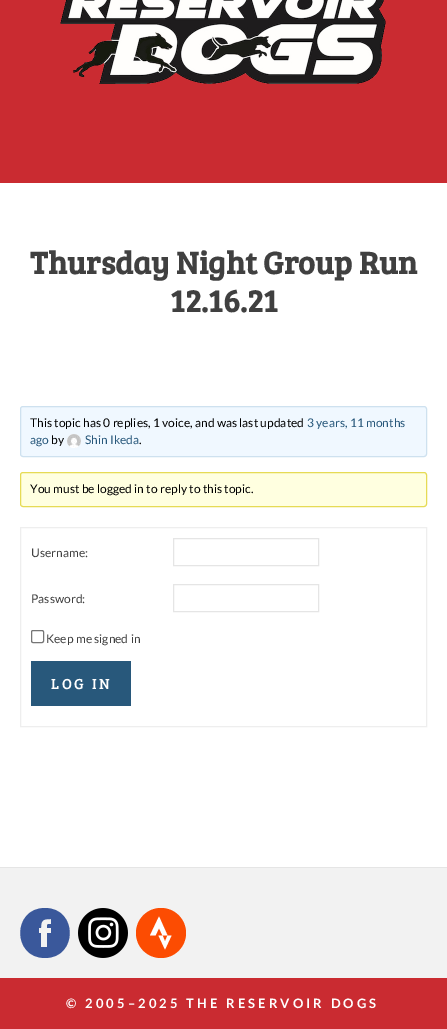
%!PS-Adobe-3.0
%%BoundingBox: 0 0 447 1029
%%LanguageLevel: 3
%%Pages: 1
%%EndComments
%%BeginProlog
/setink { 3 { 255 div 3 1 roll } repeat setrgbcolor } def
/usefont { [ exch dup neg 0 0 3 -1 roll 0 0 ] selectfont } def
/drawtext { setink usefont moveto show } def
/fillbox { setink rectfill } def
/disc { newpath 0 360 arc closepath } def
/rrect { 5 dict begin { /r /h /w /y /x } { exch def } forall
  x r add y moveto x w add y 2 copy h add r arct x w add y h add x 1 index r arct
  x y h add x y r arct x y 2 copy exch w add exch r arct closepath end } def
/drawimage { 5 dict begin { /h /w /y /x /name } { exch def } forall
  gsave x y translate w h scale
  w h 8 [w 0 0 h 0 0] name (r) file false 3 colorimage grestore end } def
%%EndProlog
%%BeginSetup
<< /PageSize [447 1029] >> setpagedevice
%%EndSetup
%%Page: 1 1
0 1029 translate 1 -1 scale
4 setmiterlimit
0 0 447 1029 255 255 255 fillbox
0 0 447 183 202 43 49 fillbox
(assets/img1.rgb) 60 0 326 84 drawimage
(Thursday Night Group Run) 30 274 /BreeSerif-Bold 32 64 64 64 drawtext
(12.16.21) 170 312 /BreeSerif-Bold 32 64 64 64 drawtext
240 248 255 setink
20.5 406.5 406 50 2.5 rrect gsave fill grestore
206 225 239 setink
stroke
(This topic has 0 replies, 1 voice, and was last updated) 30 427 /Lato-Regular 12 0 0 0 drawtext
(3 years, 11 months) 307 427 /Lato-Regular 12 40 88 123 drawtext
(ago) 30 444 /Lato-Regular 12 40 88 123 drawtext
(by) 51 444 /Lato-Regular 12 0 0 0 drawtext
(assets/img2.rgb) 67 434 14 14 drawimage
(Shin Ikeda) 85 444 /Lato-Regular 12 40 88 123 drawtext
(.) 139 444 /Lato-Regular 12 0 0 0 drawtext
255 255 224 setink
20.5 472.5 406 34 2.5 rrect gsave fill grestore
230 219 85 setink
stroke
(You must be logged in to reply to this topic.) 30 493 /Lato-Regular 12 0 0 0 drawtext
238 238 238 setink
20.5 527.5 406 199 rectstroke
(Username:) 31 557 /Lato-Regular 12 64 64 64 drawtext
229 229 229 setink
173.5 538.5 145 27 rectstroke
(Password:) 31 603 /Lato-Regular 12 64 64 64 drawtext
229 229 229 setink
173.5 584.5 145 27 rectstroke
118 118 118 setink
31.5 630.5 12 12 1.5 rrect stroke
(Keep me signed in) 46 643 /Lato-Regular 12 64 64 64 drawtext
31 661 100 45 40 88 123 fillbox
/BreeSerif-Regular 15 usefont
255 255 255 setink
51 689 moveto 2.5 0 (LOG IN) ashow
0 868 447 110 242 242 242 fillbox
0 867 447 1 229 229 229 fillbox
58 88 155 setink
41 947 moveto 47 947 lineto 47 933 lineto 51 933 lineto 51 928 lineto 47 928 lineto 47 924 47 924 51 924 curveto 51 919 lineto 43 919 41 920 41 928 curveto 39 928 lineto 39 933 lineto 41 933 lineto closepath 45 958 moveto 12 958 12 908 45 908 curveto 78 908 78 958 45 958 curveto closepath eofill
(assets/img3.rgb) 78 908 50 50 drawimage
252 76 2 setink
161 933 25 disc fill
255 255 255 setink
154.5 926 moveto 150 935.5 lineto 155.5 935.5 lineto 159 928 lineto 162.5 935.5 lineto 158.5 935.5 lineto 165 949.5 lineto 171.5 935.5 lineto 167.5 935.5 lineto 159 916.5 lineto closepath 167.5 935.5 moveto 165 941.5 lineto 162.5 935.5 lineto closepath fill
0 978 447 51 202 43 49 fillbox
/Lato-Bold 13 usefont
255 255 255 setink
66 1008 moveto 3.1 0 (© 2005–2025 THE RESERVOIR DOGS) ashow
showpage
%%EOF
